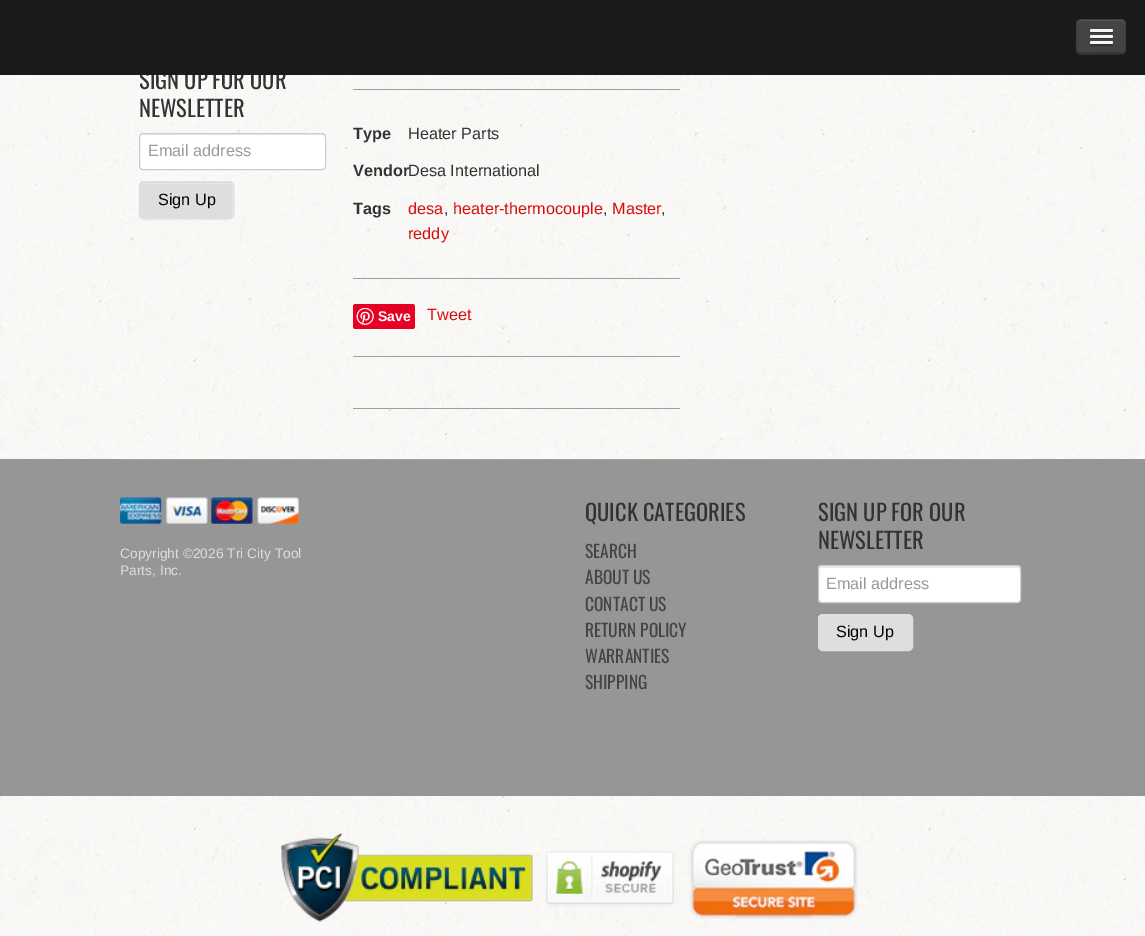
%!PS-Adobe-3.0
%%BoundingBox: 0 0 1145 936
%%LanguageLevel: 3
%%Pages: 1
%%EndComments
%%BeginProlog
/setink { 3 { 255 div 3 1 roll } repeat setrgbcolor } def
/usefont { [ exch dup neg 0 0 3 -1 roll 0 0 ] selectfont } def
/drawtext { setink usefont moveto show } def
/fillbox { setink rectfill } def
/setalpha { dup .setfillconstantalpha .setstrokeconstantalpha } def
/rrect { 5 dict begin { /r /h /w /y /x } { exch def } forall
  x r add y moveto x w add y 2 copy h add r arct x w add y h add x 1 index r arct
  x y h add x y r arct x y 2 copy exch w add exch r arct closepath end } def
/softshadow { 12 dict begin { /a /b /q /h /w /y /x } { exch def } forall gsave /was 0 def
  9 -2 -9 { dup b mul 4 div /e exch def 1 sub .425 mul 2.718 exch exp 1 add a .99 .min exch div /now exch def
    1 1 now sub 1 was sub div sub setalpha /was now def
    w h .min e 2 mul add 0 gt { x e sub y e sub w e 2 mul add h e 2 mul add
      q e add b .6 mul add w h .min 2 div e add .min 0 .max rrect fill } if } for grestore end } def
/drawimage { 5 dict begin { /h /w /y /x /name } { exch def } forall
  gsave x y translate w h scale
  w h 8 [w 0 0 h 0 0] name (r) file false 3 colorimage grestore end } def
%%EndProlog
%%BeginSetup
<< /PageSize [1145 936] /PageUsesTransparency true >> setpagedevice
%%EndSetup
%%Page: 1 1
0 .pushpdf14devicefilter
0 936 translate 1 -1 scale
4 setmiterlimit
0 0 1145 936 255 255 255 fillbox
(assets/img1.rgb) 0 75 1145 861 drawimage
(SIGN UP FOR OUR) 139 89 /Oswald-Regular 22.5 51 51 51 drawtext
0 0 1145 75 26 26 26 fillbox
43 43 43 setink
1076 23 moveto 1076 38 lineto 1076 57 1074 55 1094 55 curveto 1122 55 lineto 1124 54 1126 53 1126 50 curveto 1124 55 1118 54 1115 54 curveto 1088 54 lineto 1085 54 1080 55 1078 52 curveto 1076 50 lineto closepath fill
68 68 68 setink
1076 19 50 35 5 rrect fill
87 87 87 setink
1081 21 moveto 1121 21 lineto 1123 21 1125 23 1125 25 curveto 1125 19 1119 20 1114 20 curveto 1088 20 lineto 1084 20 1078 19 1078 25 curveto 1078 23 1079 21 1081 21 curveto closepath fill
51 51 51 setink
1.2 setlinewidth
1124.5 52 moveto 1123.5 52.5 1122.5 53 1121 53 curveto 1081 53 lineto 1080 53 1079 52.5 1078 52 curveto stroke
0.1 setalpha
0 0 0 setink
1078 52 moveto 1075.5 49.5 1077 39.5 1077 36 curveto 1077 28 lineto 1077 25 1076.5 20.5 1080.5 19.5 curveto 1122 19.5 lineto 1126 20.5 1125.5 25 1125.5 28 curveto 1125.5 36 lineto 1125.5 39.5 1127 49.5 1124.5 52 curveto stroke
1 setalpha
51 51 51 setink
1090 30.5 moveto 1088.5 33.5 1094.5 33 1095 33 curveto 1108 33 lineto 1109 33 1112.5 34 1113 32 curveto 1113 31.5 1113 30.5 1112.5 30.5 curveto 1111.5 31 lineto 1091 31 lineto closepath fill
245 245 245 setink
1090 29 23 3 1.5 rrect fill
51 51 51 setink
1090 37 moveto 1089 39.5 1094 39 1095 39 curveto 1108 39 lineto 1109 39 1112.5 40 1113 38 curveto 1113 37.5 1113 36.5 1112.5 36.5 curveto 1112.5 37 1112 37.5 1111 37.5 curveto 1091 37.5 lineto 1091 37.5 1090.5 37 1090 37 curveto closepath fill
245 245 245 setink
1090 35 23 3 1.5 rrect fill
51 51 51 setink
1090.5 43.5 moveto 1090 45 lineto 1090.5 47 1094 46 1095 46 curveto 1098 46 lineto 1100 46 1111.5 46.5 1112.5 45.5 curveto 1113 45 1113 44 1112.5 43 curveto 1111.5 43.5 lineto 1109.5 44 1091 44 1090.5 43.5 curveto closepath fill
245 245 245 setink
1090 41 23 3 1.5 rrect fill
(NEWSLETTER) 139 117 /Oswald-Regular 22.5 51 51 51 drawtext
255 255 255 setink
139 133 187 37 4 rrect fill
236 236 236 setink
142 135 moveto 322 135 lineto 324 136 lineto 325 138 lineto 325 136 325 134 322 134 curveto 142 134 lineto 140 134 140 136 140 138 curveto 140 136 141 135 142 135 curveto closepath fill
204 204 204 setink
1 setlinewidth
139.5 133.5 186 36 3.5 rrect stroke
(Email address) 148 156 /LiberationSans-Regular 16.25 153 153 153 drawtext
0 0 0 setink
139 183 95 37 5 1 0.05 softshadow
222 222 222 setink
139 181 95 38 5 rrect fill
229 229 229 setink
144 184 moveto 229 184 lineto 234 184 232 194 232 197 curveto 232 217 lineto 232 216 233 215 233 214 curveto 233 187 lineto 233 185 231 183 229 183 curveto 144 183 lineto 142 183 140 185 140 187 curveto 140 188 lineto 140 185 142 184 144 184 curveto closepath fill
222 222 222 setink
139.5 181.5 94 37 4.5 rrect stroke
(Sign Up) 158 205 /LiberationSans-Regular 16.25 0 0 0 drawtext
353 89 327 1 158 158 158 fillbox
(Type) 353 139 /LiberationSans-Bold 16.25 51 51 51 drawtext
(Heater Parts) 408 139 /LiberationSans-Regular 16.25 51 51 51 drawtext
(Vendor) 353 176 /LiberationSans-Bold 16.25 51 51 51 drawtext
(Desa International) 408 176 /LiberationSans-Regular 16.25 51 51 51 drawtext
(Tags) 353 214 /LiberationSans-Bold 16.25 51 51 51 drawtext
(desa) 408 214 /LiberationSans-Regular 16.25 214 13 13 drawtext
(,) 444 214 /LiberationSans-Regular 16.25 51 51 51 drawtext
(heater-thermocouple) 453 214 /LiberationSans-Regular 16.25 214 13 13 drawtext
(,) 603 214 /LiberationSans-Regular 16.25 51 51 51 drawtext
(Master) 612 214 /LiberationSans-Regular 16.25 214 13 13 drawtext
(,) 661 214 /LiberationSans-Regular 16.25 51 51 51 drawtext
(reddy) 408 239 /LiberationSans-Regular 16.25 214 13 13 drawtext
353 278 327 1 158 158 158 fillbox
230 0 35 setink
353 304 62 25 2.5 rrect fill
(assets/img2.rgb) 356 308 18 17 drawimage
(Save) 378 321 /LiberationSans-Bold 14 255 255 255 drawtext
(Tweet) 427 320 /LiberationSans-Regular 16.25 214 13 13 drawtext
353 356 327 1 158 158 158 fillbox
353 408 327 1 158 158 158 fillbox
0 459 1145 337 150 150 150 fillbox
120 459 905 1 158 158 158 fillbox
(assets/img3.rgb) 120 497 42 27 drawimage
(assets/img4.rgb) 166 497 42 27 drawimage
(assets/img5.rgb) 211 497 42 27 drawimage
(assets/img6.rgb) 257 497 42 27 drawimage
(Copyright ©2026 Tri City Tool) 120 558 /LiberationSans-Regular 13.75 222 222 222 drawtext
(Parts, Inc.) 120 575 /LiberationSans-Regular 13.75 222 222 222 drawtext
(QUICK CATEGORIES) 585 521 /Oswald-Regular 22.5 51 51 51 drawtext
(SEARCH) 585 558 /Oswald-Regular 17.5 68 68 68 drawtext
(ABOUT US) 585 584 /Oswald-Regular 17.5 68 68 68 drawtext
(CONTACT US) 585 611 /Oswald-Regular 17.5 68 68 68 drawtext
(RETURN POLICY) 585 637 /Oswald-Regular 17.5 68 68 68 drawtext
(WARRANTIES) 585 663 /Oswald-Regular 17.5 68 68 68 drawtext
(SHIPPING) 585 689 /Oswald-Regular 17.5 68 68 68 drawtext
(SIGN UP FOR OUR) 818 521 /Oswald-Regular 22.5 51 51 51 drawtext
(NEWSLETTER) 818 549 /Oswald-Regular 22.5 51 51 51 drawtext
255 255 255 setink
818 565 203 38 4 rrect fill
236 236 236 setink
821 568 moveto 1018 568 lineto 1019 568 1020 569 1020 570 curveto 1020 568 lineto 1020 567 1019 566 1018 566 curveto 822 566 lineto 820 566 819 567 819 568 curveto 819 570 lineto 819 569 820 568 821 568 curveto closepath fill
204 204 204 setink
818.5 565.5 202 37 3.5 rrect stroke
(Email address) 826 589 /LiberationSans-Regular 16.25 153 153 153 drawtext
222 222 222 setink
818 614 95 37 5 rrect fill
229 229 229 setink
822 616 moveto 908 616 lineto 910 616 911 618 911 620 curveto 911 611 898 615 893 615 curveto 837 615 lineto 832 615 819 611 819 620 curveto 819 618 820 616 822 616 curveto closepath fill
222 222 222 setink
818.5 614.5 94 36 4.5 rrect stroke
(Sign Up) 836 637 /LiberationSans-Regular 16.25 0 0 0 drawtext
(assets/img7.rgb) 281 833 577 89 drawimage
.poppdf14devicefilter showpage
%%EOF
